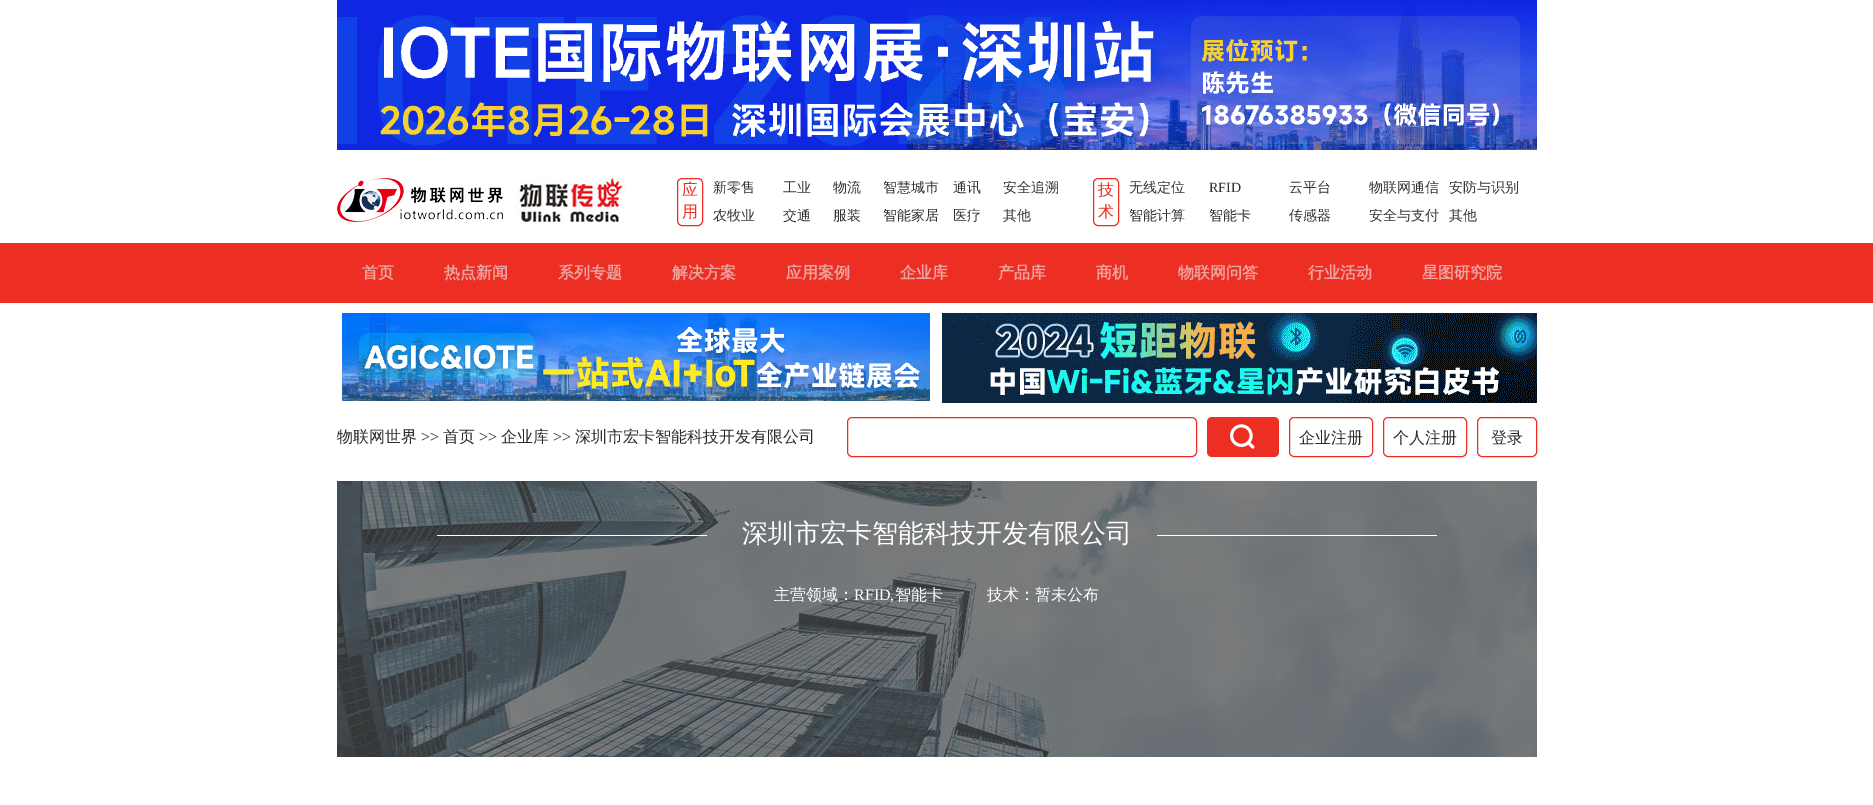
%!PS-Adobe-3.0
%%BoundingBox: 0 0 1873 805
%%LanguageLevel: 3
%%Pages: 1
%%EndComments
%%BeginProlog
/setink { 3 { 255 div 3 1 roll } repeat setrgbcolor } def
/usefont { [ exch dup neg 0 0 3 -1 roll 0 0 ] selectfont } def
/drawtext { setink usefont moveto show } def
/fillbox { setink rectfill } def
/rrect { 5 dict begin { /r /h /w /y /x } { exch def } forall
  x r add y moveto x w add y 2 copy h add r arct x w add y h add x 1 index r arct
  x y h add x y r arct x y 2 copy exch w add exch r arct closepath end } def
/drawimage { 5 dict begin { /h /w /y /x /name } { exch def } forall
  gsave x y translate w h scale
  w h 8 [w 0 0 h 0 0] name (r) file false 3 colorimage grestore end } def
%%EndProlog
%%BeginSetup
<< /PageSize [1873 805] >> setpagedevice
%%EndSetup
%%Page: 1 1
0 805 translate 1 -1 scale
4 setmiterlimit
0 0 1873 805 255 255 255 fillbox
(assets/img1.rgb) 337 0 1200 150 drawimage
(assets/img2.rgb) 337 178 166 44 drawimage
(assets/img3.rgb) 515 178 110 44 drawimage
237 46 35 setink
677.5 178.5 25 47 4.5 rrect stroke
(应) 682 195 /WenQuanYiZenHei-Medium 16 237 46 35 drawtext
(用) 682 217 /WenQuanYiZenHei-Medium 16 237 46 35 drawtext
gsave
713 181 60 16 rectclip
(新零售) 713 192 /WenQuanYiZenHei-Medium 14 51 51 51 drawtext
grestore
gsave
783 181 40 16 rectclip
(工业) 783 192 /WenQuanYiZenHei-Medium 14 51 51 51 drawtext
grestore
gsave
833 181 40 16 rectclip
(物流) 833 192 /WenQuanYiZenHei-Medium 14 51 51 51 drawtext
grestore
gsave
883 181 60 16 rectclip
(智慧城市) 883 192 /WenQuanYiZenHei-Medium 14 51 51 51 drawtext
grestore
gsave
953 181 40 16 rectclip
(通讯) 953 192 /WenQuanYiZenHei-Medium 14 51 51 51 drawtext
grestore
gsave
1003 181 60 16 rectclip
(安全追溯) 1003 192 /WenQuanYiZenHei-Medium 14 51 51 51 drawtext
grestore
gsave
713 209 60 16 rectclip
(农牧业) 713 220 /WenQuanYiZenHei-Medium 14 51 51 51 drawtext
grestore
gsave
783 209 40 16 rectclip
(交通) 783 220 /WenQuanYiZenHei-Medium 14 51 51 51 drawtext
grestore
gsave
833 209 40 16 rectclip
(服装) 833 220 /WenQuanYiZenHei-Medium 14 51 51 51 drawtext
grestore
gsave
883 209 60 16 rectclip
(智能家居) 883 220 /WenQuanYiZenHei-Medium 14 51 51 51 drawtext
grestore
(医疗) 953 220 /WenQuanYiZenHei-Medium 14 51 51 51 drawtext
gsave
1003 209 60 16 rectclip
(其他) 1003 220 /WenQuanYiZenHei-Medium 14 51 51 51 drawtext
grestore
237 46 35 setink
1093.5 178.5 25 47 4.5 rrect stroke
(技) 1098 195 /WenQuanYiZenHei-Medium 16 237 46 35 drawtext
(术) 1098 217 /WenQuanYiZenHei-Medium 16 237 46 35 drawtext
gsave
1129 181 70 16 rectclip
(无线定位) 1129 192 /WenQuanYiZenHei-Medium 14 51 51 51 drawtext
grestore
(RFID) 1209 192 /LiberationSerif-Regular 14 51 51 51 drawtext
(云平台) 1289 192 /WenQuanYiZenHei-Medium 14 51 51 51 drawtext
gsave
1369 181 70 16 rectclip
(物联网通信) 1369 192 /WenQuanYiZenHei-Medium 14 51 51 51 drawtext
grestore
gsave
1449 181 70 16 rectclip
(安防与识别) 1449 192 /WenQuanYiZenHei-Medium 14 51 51 51 drawtext
grestore
gsave
1129 209 70 16 rectclip
(智能计算) 1129 220 /WenQuanYiZenHei-Medium 14 51 51 51 drawtext
grestore
gsave
1209 209 70 16 rectclip
(智能卡) 1209 220 /WenQuanYiZenHei-Medium 14 51 51 51 drawtext
grestore
gsave
1289 209 70 16 rectclip
(传感器) 1289 220 /WenQuanYiZenHei-Medium 14 51 51 51 drawtext
grestore
gsave
1369 209 70 16 rectclip
(安全与支付) 1369 220 /WenQuanYiZenHei-Medium 14 51 51 51 drawtext
grestore
gsave
1449 209 70 16 rectclip
(其他) 1449 220 /WenQuanYiZenHei-Medium 14 51 51 51 drawtext
grestore
0 243 1873 60 237 47 35 fillbox
(首页) 362 278 /WenQuanYiZenHei-Bold 16 237 163 160 drawtext
(热点新闻) 444 278 /WenQuanYiZenHei-Bold 16 237 163 160 drawtext
(系列专题) 558 278 /WenQuanYiZenHei-Bold 16 237 163 160 drawtext
(解决方案) 672 278 /WenQuanYiZenHei-Bold 16 237 163 160 drawtext
(应用案例) 786 278 /WenQuanYiZenHei-Bold 16 237 163 160 drawtext
(企业库) 900 278 /WenQuanYiZenHei-Bold 16 237 163 160 drawtext
(产品库) 998 278 /WenQuanYiZenHei-Bold 16 237 163 160 drawtext
(商机) 1096 278 /WenQuanYiZenHei-Bold 16 237 163 160 drawtext
(物联网问答) 1178 278 /WenQuanYiZenHei-Bold 16 237 163 160 drawtext
(行业活动) 1308 278 /WenQuanYiZenHei-Bold 16 237 163 160 drawtext
(星图研究院) 1422 278 /WenQuanYiZenHei-Bold 16 237 163 160 drawtext
(assets/img4.rgb) 342 313 588 88 drawimage
(assets/img5.rgb) 942 313 595 90 drawimage
(物联网世界) 337 442 /WenQuanYiZenHei-Medium 16 43 43 43 drawtext
(>>) 421 442 /LiberationSerif-Regular 16 43 43 43 drawtext
(首页) 443 442 /WenQuanYiZenHei-Medium 16 43 43 43 drawtext
(>>) 479 442 /LiberationSerif-Regular 16 43 43 43 drawtext
(企业库) 501 442 /WenQuanYiZenHei-Medium 16 43 43 43 drawtext
(>>) 553 442 /LiberationSerif-Regular 16 43 43 43 drawtext
(深圳市宏卡智能科技开发有限公司) 575 442 /WenQuanYiZenHei-Medium 16 43 43 43 drawtext
237 46 35 setink
847.5 417.5 349 39 4.5 rrect stroke
1207 417 72 40 5 rrect fill
(assets/img6.rgb) 1230 424 25 25 drawimage
1289.5 417.5 83 39 4.5 rrect stroke
(企业注册) 1299 443 /WenQuanYiZenHei-Medium 16 43 43 43 drawtext
237 46 35 setink
1383.5 417.5 83 39 4.5 rrect stroke
(个人注册) 1393 443 /WenQuanYiZenHei-Medium 16 43 43 43 drawtext
237 46 35 setink
1477.5 417.5 59 39 4.5 rrect stroke
(登录) 1491 443 /WenQuanYiZenHei-Medium 16 43 43 43 drawtext
(assets/img7.rgb) 337 481 1200 276 drawimage
(assets/img8.rgb) 437 535 1000 1 drawimage
(深圳市宏卡智能科技开发有限公司) 742 542 /WenQuanYiZenHei-Medium 26 255 255 255 drawtext
(主营领域：) 774 600 /WenQuanYiZenHei-Medium 16 255 255 255 drawtext
(RFID,) 854 600 /LiberationSerif-Regular 16 255 255 255 drawtext
(智能卡) 895 600 /WenQuanYiZenHei-Medium 16 255 255 255 drawtext
(技术：暂未公布) 987 600 /WenQuanYiZenHei-Medium 16 255 255 255 drawtext
showpage
%%EOF
